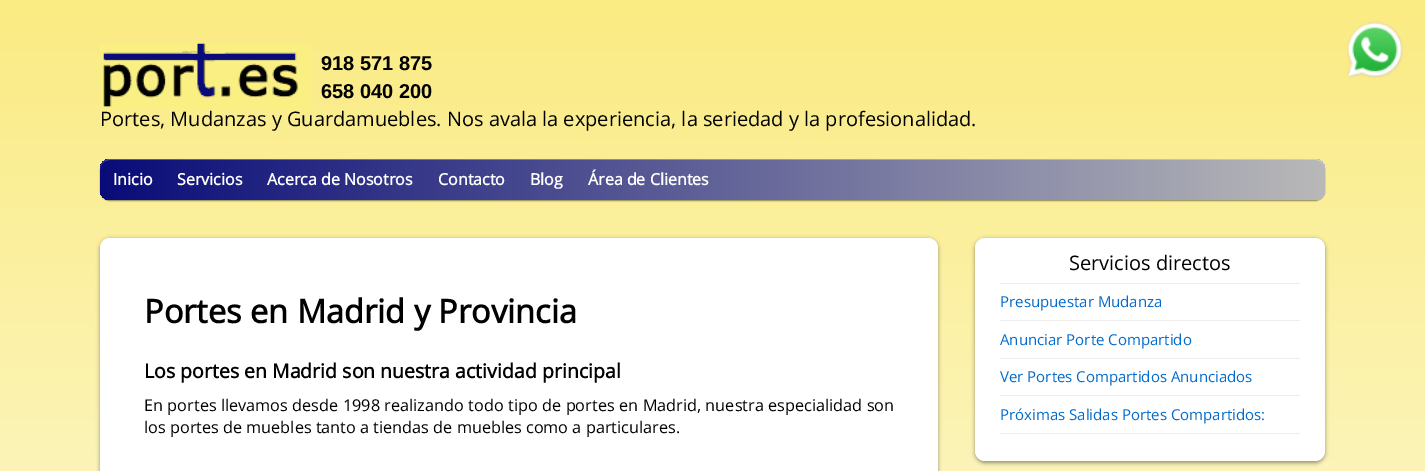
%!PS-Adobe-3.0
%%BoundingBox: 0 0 1425 471
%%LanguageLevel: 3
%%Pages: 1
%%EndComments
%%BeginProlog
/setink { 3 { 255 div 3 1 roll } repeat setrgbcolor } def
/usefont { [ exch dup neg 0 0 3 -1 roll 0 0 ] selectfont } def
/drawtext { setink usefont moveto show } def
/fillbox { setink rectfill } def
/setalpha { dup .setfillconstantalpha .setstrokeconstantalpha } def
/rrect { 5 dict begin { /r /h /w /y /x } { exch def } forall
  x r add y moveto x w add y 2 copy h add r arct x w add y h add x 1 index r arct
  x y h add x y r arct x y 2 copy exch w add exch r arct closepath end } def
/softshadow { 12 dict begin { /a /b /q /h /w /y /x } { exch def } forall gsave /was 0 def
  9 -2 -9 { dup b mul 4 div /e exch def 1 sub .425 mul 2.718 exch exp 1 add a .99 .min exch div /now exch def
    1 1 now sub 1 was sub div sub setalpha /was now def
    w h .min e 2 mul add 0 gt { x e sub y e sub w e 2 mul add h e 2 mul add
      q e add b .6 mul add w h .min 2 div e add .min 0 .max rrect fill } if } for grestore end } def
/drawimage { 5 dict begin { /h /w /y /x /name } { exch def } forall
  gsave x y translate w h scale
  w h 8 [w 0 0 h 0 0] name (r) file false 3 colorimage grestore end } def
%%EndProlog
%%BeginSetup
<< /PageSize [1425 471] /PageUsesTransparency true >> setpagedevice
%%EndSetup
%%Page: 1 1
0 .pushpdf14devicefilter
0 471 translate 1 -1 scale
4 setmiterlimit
0 0 1425 471 255 255 255 fillbox
gsave 0 0 moveto 1425 0 lineto 1425 471 lineto 0 471 lineto closepath clip newpath
<< /ShadingType 2 /ColorSpace /DeviceRGB /Coords [713 0 713 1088] /Extend [true true] /Function << /FunctionType 2 /Domain [0 1] /C0 [0.98 0.922 0.51] /C1 [1 1 1] /N 1 >> >> shfill grestore
(assets/img1.rgb) 1347 21 56 57 drawimage
(assets/img2.rgb) 100 43 211 67 drawimage
(918 571 875) 321 70 /LiberationSans-Bold 20 0 0 0 drawtext
(658 040 200) 321 98 /LiberationSans-Bold 20 0 0 0 drawtext
(Portes, Mudanzas y Guardamuebles. Nos avala la experiencia, la seriedad y la profesionalidad.) 100 126 /OpenSans-Regular 20 0 0 0 drawtext
100 160 1225 41 10 0.5 0.4 softshadow
gsave 100 159 1225 41 10 rrect clip newpath
<< /ShadingType 2 /ColorSpace /DeviceRGB /Coords [1325 179 100 179] /Extend [true true] /Function << /FunctionType 2 /Domain [0 1] /C0 [0.725 0.725 0.725] /C1 [0.035 0.047 0.471] /N 1 >> >> shfill grestore
0.3 setalpha
255 255 255 setink
110 160 moveto 1315 160 lineto 1321 160 1325 164 1325 170 curveto 1325 164 1321 159 1315 159 curveto 110 159 lineto 104 159 100 164 100 170 curveto 100 164 104 160 110 160 curveto closepath fill
1 setalpha
(Inicio) 113 185 /OpenSans-Bold 16 255 255 255 drawtext
(Servicios) 177 185 /OpenSans-Bold 16 255 255 255 drawtext
(Acerca de Nosotros) 267 185 /OpenSans-Bold 16 255 255 255 drawtext
(Contacto) 438 185 /OpenSans-Bold 16 255 255 255 drawtext
(Blog) 530 185 /OpenSans-Bold 16 255 255 255 drawtext
(Área de Clientes) 588 185 /OpenSans-Bold 16 255 255 255 drawtext
0 0 0 setink
100 239 838 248 10 2 0.4 softshadow
255 255 255 setink
100 238 838 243 10 rrect fill
(Portes en Madrid y Provincia) 144 323 /OpenSans-Bold 32.5 0 0 0 drawtext
(Los portes en Madrid son nuestra actividad principal) 144 378 /OpenSans-Bold 19.5 0 0 0 drawtext
/OpenSans-Regular 16.25 usefont
144 411 moveto 0.25 0 32 (En portes llevamos desde 1998 realizando todo tipo de portes en Madrid, nuestra especialidad son) widthshow
(los portes de muebles tanto a tiendas de muebles como a particulares.) 144 433 /OpenSans-Regular 16.25 0 0 0 drawtext
975 239 350 224 10 2 0.4 softshadow
255 255 255 setink
975 238 350 223 10 rrect fill
(Servicios directos) 1069 270 /OpenSans-Regular 20 0 0 0 drawtext
1000 283 300 1 238 238 238 fillbox
(Presupuestar Mudanza) 1000 307 /OpenSans-Regular 15 2 106 203 drawtext
1000 320 300 1 238 238 238 fillbox
(Anunciar Porte Compartido) 1000 345 /OpenSans-Regular 15 2 106 203 drawtext
1000 358 300 1 238 238 238 fillbox
(Ver Portes Compartidos Anunciados) 1000 382 /OpenSans-Regular 15 2 106 203 drawtext
1000 395 300 1 238 238 238 fillbox
(Próximas Salidas Portes Compartidos:) 1000 420 /OpenSans-Regular 15 2 106 203 drawtext
1000 433 300 1 238 238 238 fillbox
.poppdf14devicefilter showpage
%%EOF
